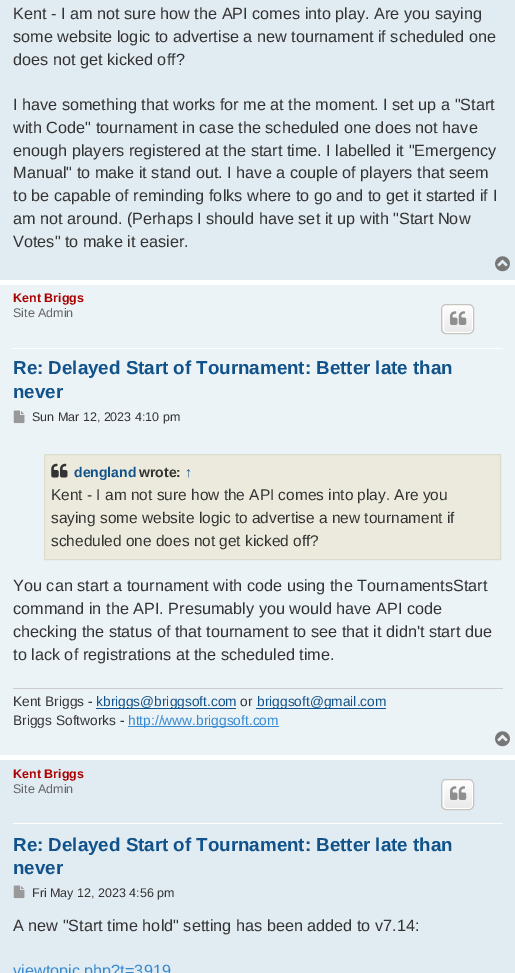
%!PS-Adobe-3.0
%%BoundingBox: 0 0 515 973
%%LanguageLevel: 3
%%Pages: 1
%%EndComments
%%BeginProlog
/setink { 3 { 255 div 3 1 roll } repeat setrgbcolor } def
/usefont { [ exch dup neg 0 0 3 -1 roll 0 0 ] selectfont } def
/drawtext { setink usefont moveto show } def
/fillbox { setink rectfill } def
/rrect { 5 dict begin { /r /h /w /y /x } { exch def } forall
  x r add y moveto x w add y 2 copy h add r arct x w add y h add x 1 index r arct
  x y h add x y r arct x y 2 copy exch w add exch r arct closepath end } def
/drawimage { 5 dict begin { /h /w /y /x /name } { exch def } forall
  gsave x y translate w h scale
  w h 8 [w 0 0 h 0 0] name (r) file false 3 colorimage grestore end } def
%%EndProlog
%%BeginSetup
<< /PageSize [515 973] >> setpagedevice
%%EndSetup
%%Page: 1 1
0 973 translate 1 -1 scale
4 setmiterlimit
0 0 515 973 255 255 255 fillbox
0 0 515 280 225 235 242 fillbox
(Kent - I am not sure how the API comes into play. Are you saying) 13 19 /LiberationSans-Regular 16.25 51 51 51 drawtext
(some website logic to advertise a new tournament if scheduled one) 13 42 /LiberationSans-Regular 16.25 51 51 51 drawtext
(does not get kicked off?) 13 65 /LiberationSans-Regular 16.25 51 51 51 drawtext
(I have something that works for me at the moment. I set up a "Start) 13 110 /LiberationSans-Regular 16.25 51 51 51 drawtext
(with Code" tournament in case the scheduled one does not have) 13 133 /LiberationSans-Regular 16.25 51 51 51 drawtext
(enough players registered at the start time. I labelled it "Emergency) 13 156 /LiberationSans-Regular 16.25 51 51 51 drawtext
(Manual" to make it stand out. I have a couple of players that seem) 13 178 /LiberationSans-Regular 16.25 51 51 51 drawtext
(to be capable of reminding folks where to go and to get it started if I) 13 201 /LiberationSans-Regular 16.25 51 51 51 drawtext
(am not around. \(Perhaps I should have set it up with "Start Now) 13 224 /LiberationSans-Regular 16.25 51 51 51 drawtext
(Votes" to make it easier.) 13 247 /LiberationSans-Regular 16.25 51 51 51 drawtext
(assets/img1.rgb) 495 256 15 16 drawimage
0 285 515 470 236 243 247 fillbox
13 348 490 1 255 255 255 fillbox
(Kent Briggs) 13 302 /LiberationSans-Bold 12.5 170 0 0 drawtext
(Site Admin) 13 317 /LiberationSans-Regular 12.5 102 102 102 drawtext
gsave
441 304 33 30 5 rrect clip newpath
gsave 441 305 moveto 474 305 lineto 474 333 lineto 441 333 lineto closepath clip newpath
<< /ShadingType 2 /ColorSpace /DeviceRGB /Coords [458 305 458 333] /Extend [true true] /Function << /FunctionType 2 /Domain [0 1] /C0 [1 1 1] /C1 [0.914 0.914 0.914] /N 1 >> >> shfill grestore
grestore
255 255 255 setink
443.5 305.5 29 27 3.5 rrect stroke
199 195 191 setink
441.5 304.5 32 29 4.5 rrect stroke
(assets/img2.rgb) 450 311 17 14 drawimage
(Re: Delayed Start of Tournament: Better late than) 13 374 /LiberationSans-Bold 18.75 16 82 137 drawtext
(never) 13 398 /LiberationSans-Bold 18.75 16 82 137 drawtext
(assets/img3.rgb) 13 410 12 14 drawimage
(Sun Mar 12, 2023 4:10 pm) 32 421 /LiberationSans-Regular 12.5 51 51 51 drawtext
235 234 221 setink
44.5 454.5 moveto 500.5 454.5 lineto 500.5 559.5 lineto 44.5 559.5 lineto closepath gsave fill grestore
219 219 206 setink
stroke
(assets/img4.rgb) 51 463 17 15 drawimage
(dengland) 74 477 /LiberationSans-Bold 14 16 82 137 drawtext
(wrote:) 139 477 /LiberationSans-Bold 14 51 51 51 drawtext
(↑) 185 477 /LiberationSans-Bold 14 16 82 137 drawtext
(Kent - I am not sure how the API comes into play. Are you) 51 500 /LiberationSans-Regular 15.45 51 51 51 drawtext
(saying some website logic to advertise a new tournament if) 51 523 /LiberationSans-Regular 15.45 51 51 51 drawtext
(scheduled one does not get kicked off?) 51 546 /LiberationSans-Regular 15.45 51 51 51 drawtext
(You can start a tournament with code using the TournamentsStart) 13 591 /LiberationSans-Regular 16.25 51 51 51 drawtext
(command in the API. Presumably you would have API code) 13 614 /LiberationSans-Regular 16.25 51 51 51 drawtext
(checking the status of that tournament to see that it didn't start due) 13 637 /LiberationSans-Regular 16.25 51 51 51 drawtext
(to lack of registrations at the scheduled time.) 13 660 /LiberationSans-Regular 16.25 51 51 51 drawtext
13 688 490 1 204 204 204 fillbox
(Kent Briggs -) 13 706 /LiberationSans-Regular 13.75 51 51 51 drawtext
96 708 140 1 16 82 137 fillbox
(kbriggs@briggsoft.com) 96 706 /LiberationSans-Regular 13.75 16 82 137 drawtext
(or) 240 706 /LiberationSans-Regular 13.75 51 51 51 drawtext
256 708 130 1 16 82 137 fillbox
(briggsoft@gmail.com) 257 706 /LiberationSans-Regular 13.75 16 82 137 drawtext
(Briggs Softworks -) 13 725 /LiberationSans-Regular 13.75 51 51 51 drawtext
128 726 151 1 54 138 210 fillbox
(http://www.briggsoft.com) 128 725 /LiberationSans-Regular 13.75 54 138 210 drawtext
(assets/img5.rgb) 495 731 15 16 drawimage
0 760 515 213 225 235 242 fillbox
13 823 490 1 255 255 255 fillbox
(Kent Briggs) 13 778 /LiberationSans-Bold 12.5 170 0 0 drawtext
(Site Admin) 13 793 /LiberationSans-Regular 12.5 102 102 102 drawtext
gsave
441 779 33 31 5 rrect clip newpath
gsave 441 780 moveto 474 780 lineto 474 809 lineto 441 809 lineto closepath clip newpath
<< /ShadingType 2 /ColorSpace /DeviceRGB /Coords [458 780 458 809] /Extend [true true] /Function << /FunctionType 2 /Domain [0 1] /C0 [1 1 1] /C1 [0.914 0.914 0.914] /N 1 >> >> shfill grestore
grestore
255 255 255 setink
443.5 780.5 29 28 3.5 rrect stroke
199 195 191 setink
441.5 779.5 32 30 4.5 rrect stroke
(assets/img6.rgb) 450 786 17 14 drawimage
(Re: Delayed Start of Tournament: Better late than) 13 851 /LiberationSans-Bold 18.75 16 82 137 drawtext
(never) 13 874 /LiberationSans-Bold 18.75 16 82 137 drawtext
(assets/img7.rgb) 13 885 12 14 drawimage
(Fri May 12, 2023 4:56 pm) 32 897 /LiberationSans-Regular 12.5 51 51 51 drawtext
(A new "Start time hold" setting has been added to v7.14:) 13 931 /LiberationSans-Regular 16.25 51 51 51 drawtext
(viewtopic.php?t=3919) 13 976 /LiberationSans-Regular 16.25 54 138 210 drawtext
showpage
%%EOF
